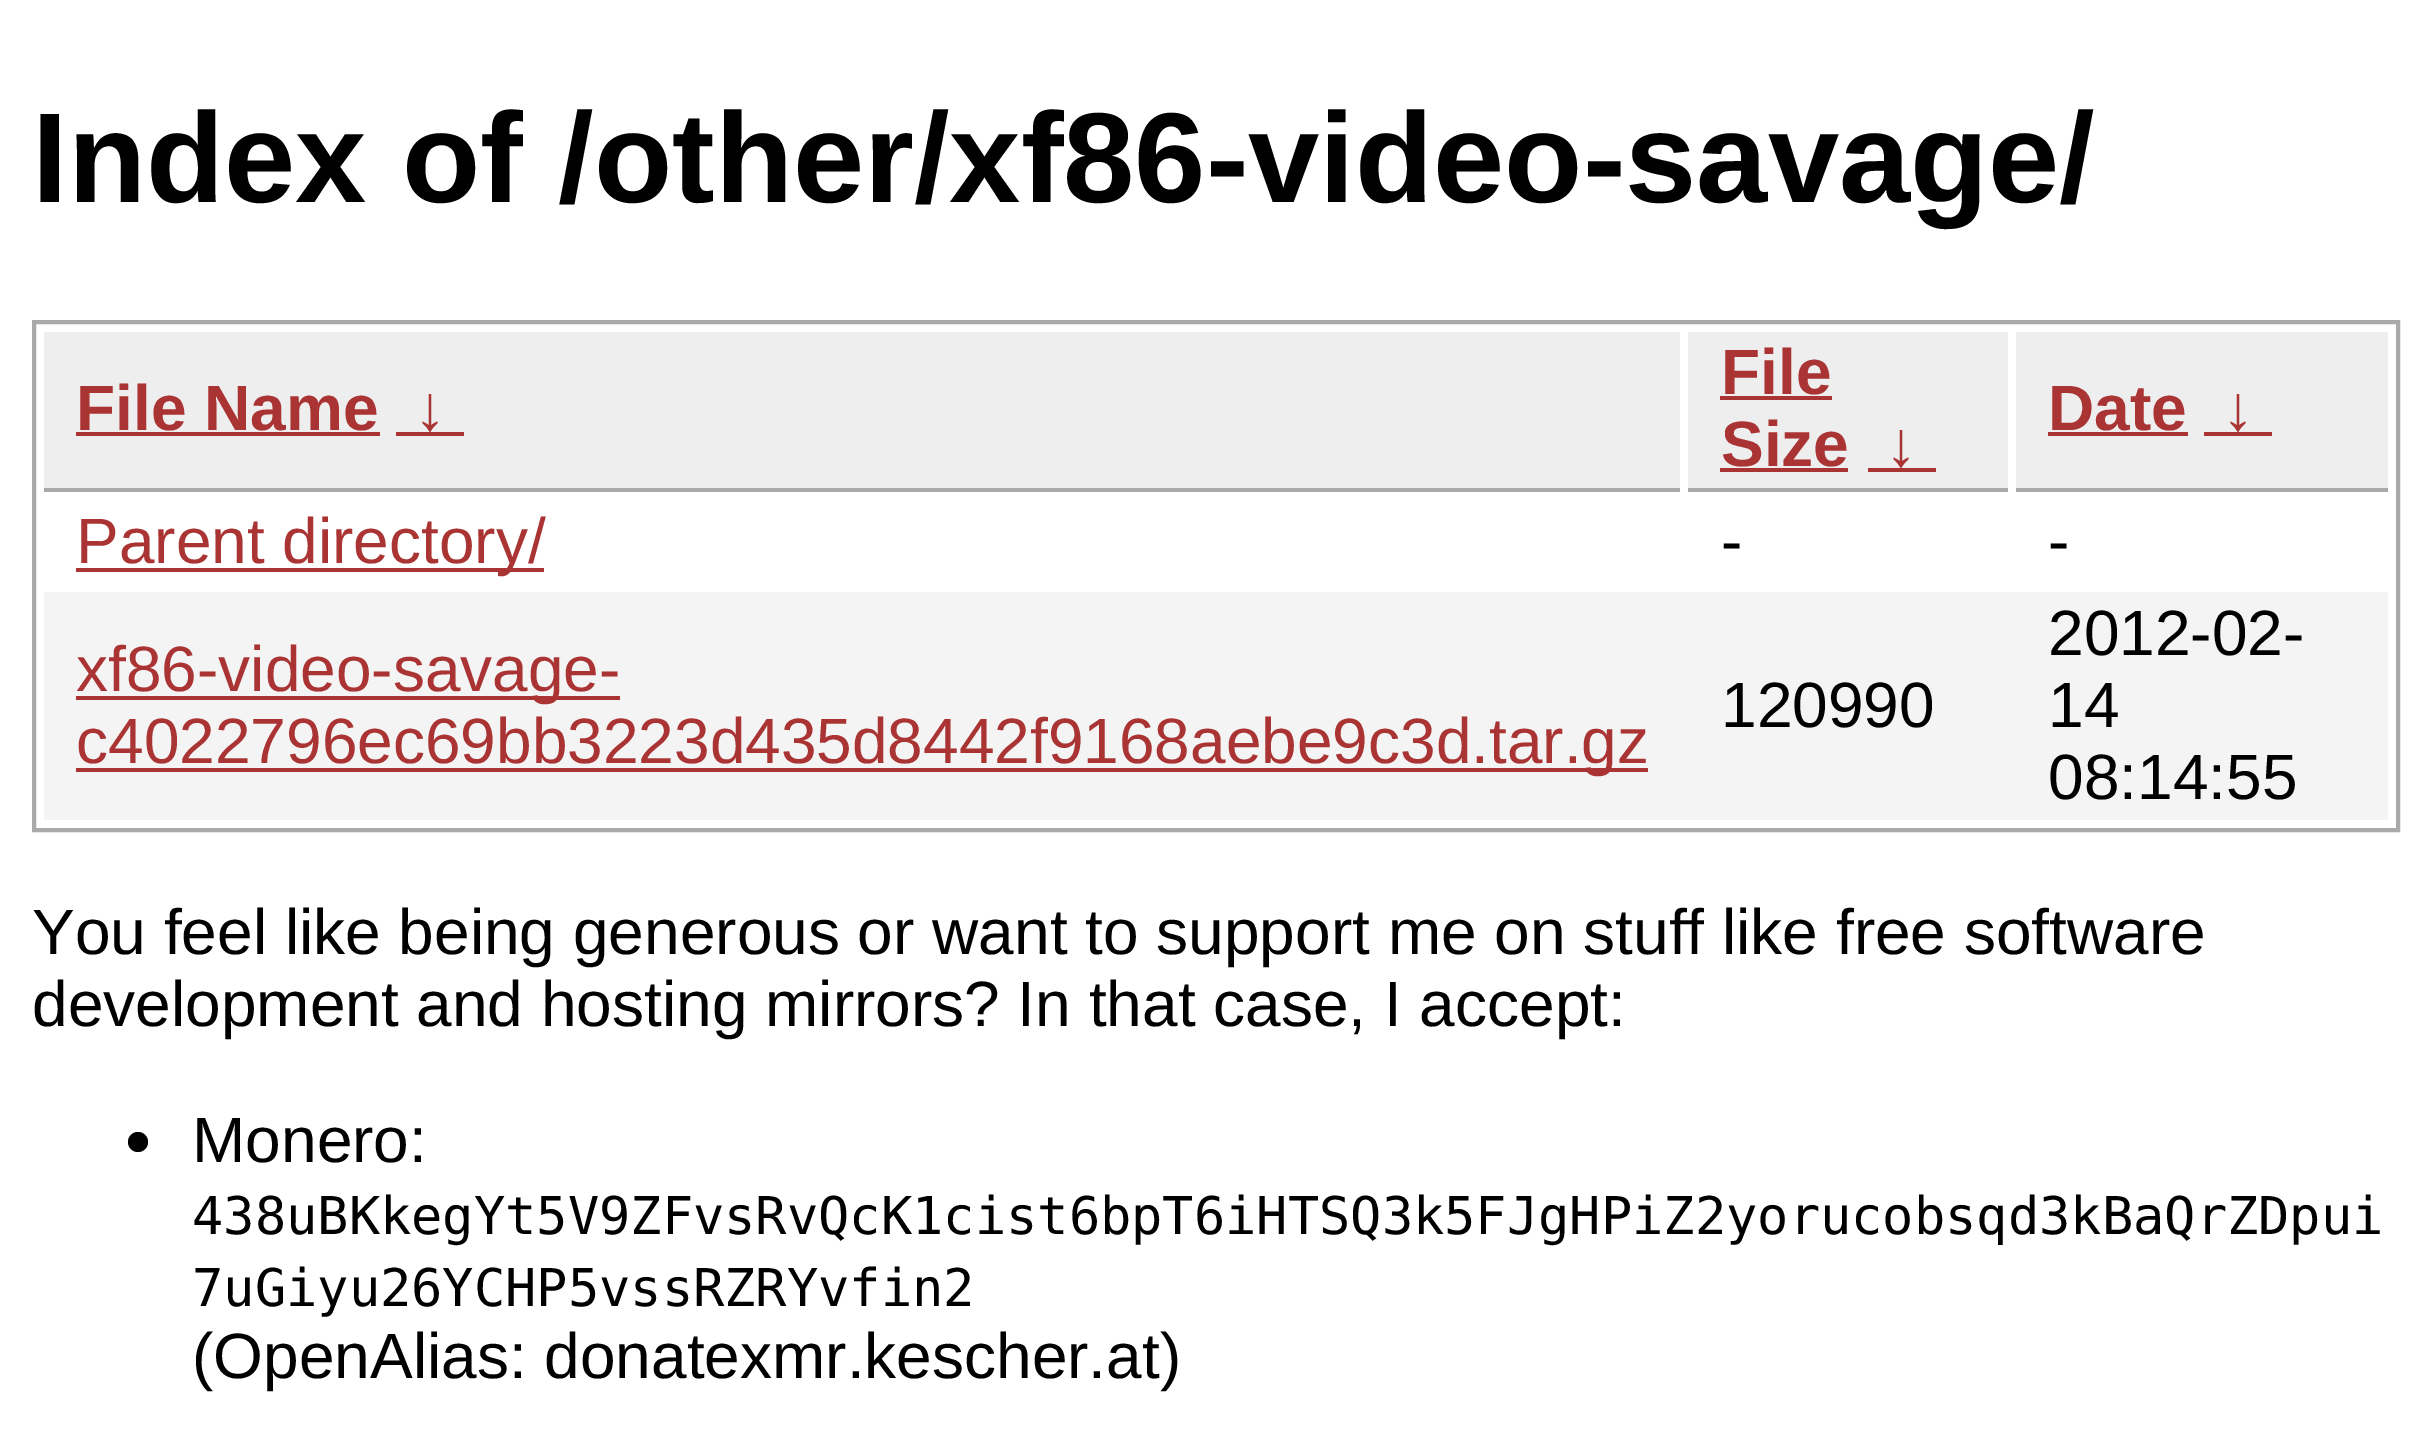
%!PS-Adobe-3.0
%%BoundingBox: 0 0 2431 1456
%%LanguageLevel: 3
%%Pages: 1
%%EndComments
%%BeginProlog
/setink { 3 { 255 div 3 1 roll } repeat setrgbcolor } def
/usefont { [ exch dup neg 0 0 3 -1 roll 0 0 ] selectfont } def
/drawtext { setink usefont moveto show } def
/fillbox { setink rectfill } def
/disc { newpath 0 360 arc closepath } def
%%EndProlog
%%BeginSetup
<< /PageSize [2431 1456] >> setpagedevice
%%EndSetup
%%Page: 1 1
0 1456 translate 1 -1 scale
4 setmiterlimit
0 0 2431 1456 255 255 255 fillbox
(Index of /other/xf86-video-savage/) 32 202 /LiberationSans-Bold 128 0 0 0 drawtext
170 170 170 setink
4 setlinewidth
34 322 2364 508 rectstroke
44 332 1636 156 238 238 238 fillbox
44 488 1636 4 170 170 170 fillbox
(File Name) 76 430 /LiberationSans-Bold 64 170 51 51 drawtext
76 432 304 4 170 51 51 fillbox
(↓) 414 430 /LiberationSans-Bold 64 170 51 51 drawtext
396 432 68 4 170 51 51 fillbox
1688 332 320 156 238 238 238 fillbox
1688 488 320 4 170 170 170 fillbox
(File) 1721 394 /LiberationSans-Bold 64 170 51 51 drawtext
1720 396 112 4 170 51 51 fillbox
(Size) 1721 466 /LiberationSans-Bold 64 170 51 51 drawtext
1720 468 128 4 170 51 51 fillbox
(↓) 1885 466 /LiberationSans-Bold 64 170 51 51 drawtext
1868 468 68 4 170 51 51 fillbox
2016 332 372 156 238 238 238 fillbox
2016 488 372 4 170 170 170 fillbox
(Date) 2048 430 /LiberationSans-Bold 64 170 51 51 drawtext
2048 432 140 4 170 51 51 fillbox
(↓) 2222 430 /LiberationSans-Bold 64 170 51 51 drawtext
2204 432 68 4 170 51 51 fillbox
76 568 468 4 170 51 51 fillbox
(Parent directory/) 76 563 /LiberationSans-Regular 64 170 51 51 drawtext
(-) 1721 563 /LiberationSans-Regular 64 0 0 0 drawtext
(-) 2048 563 /LiberationSans-Regular 64 0 0 0 drawtext
44 592 2344 228 244 244 244 fillbox
76 696 544 4 170 51 51 fillbox
(xf86-video-savage-) 76 691 /LiberationSans-Regular 64 170 51 51 drawtext
76 768 1572 4 170 51 51 fillbox
(c4022796ec69bb3223d435d8442f9168aebe9c3d.tar.gz) 76 763 /LiberationSans-Regular 64 170 51 51 drawtext
(120990) 1721 727 /LiberationSans-Regular 64 0 0 0 drawtext
(2012-02-) 2048 655 /LiberationSans-Regular 64 0 0 0 drawtext
(14) 2048 727 /LiberationSans-Regular 64 0 0 0 drawtext
(08:14:55) 2048 799 /LiberationSans-Regular 64 0 0 0 drawtext
(You feel like being generous or want to support me on stuff like free software) 32 954 /LiberationSans-Regular 64 0 0 0 drawtext
(development and hosting mirrors? In that case, I accept:) 32 1026 /LiberationSans-Regular 64 0 0 0 drawtext
138 1142 10 disc fill
(Monero:) 192 1162 /LiberationSans-Regular 64 0 0 0 drawtext
(438uBKkegYt5V9ZFvsRvQcK1cist6bpT6iHTSQ3k5FJgHPiZ2yorucobsqd3kBaQrZDpui) 192 1234 /DejaVuSansMono-Regular 52 0 0 0 drawtext
(7uGiyu26YCHP5vssRZRYvfin2) 192 1306 /DejaVuSansMono-Regular 52 0 0 0 drawtext
(\(OpenAlias: donatexmr.kescher.at\)) 192 1378 /LiberationSans-Regular 64 0 0 0 drawtext
showpage
%%EOF
